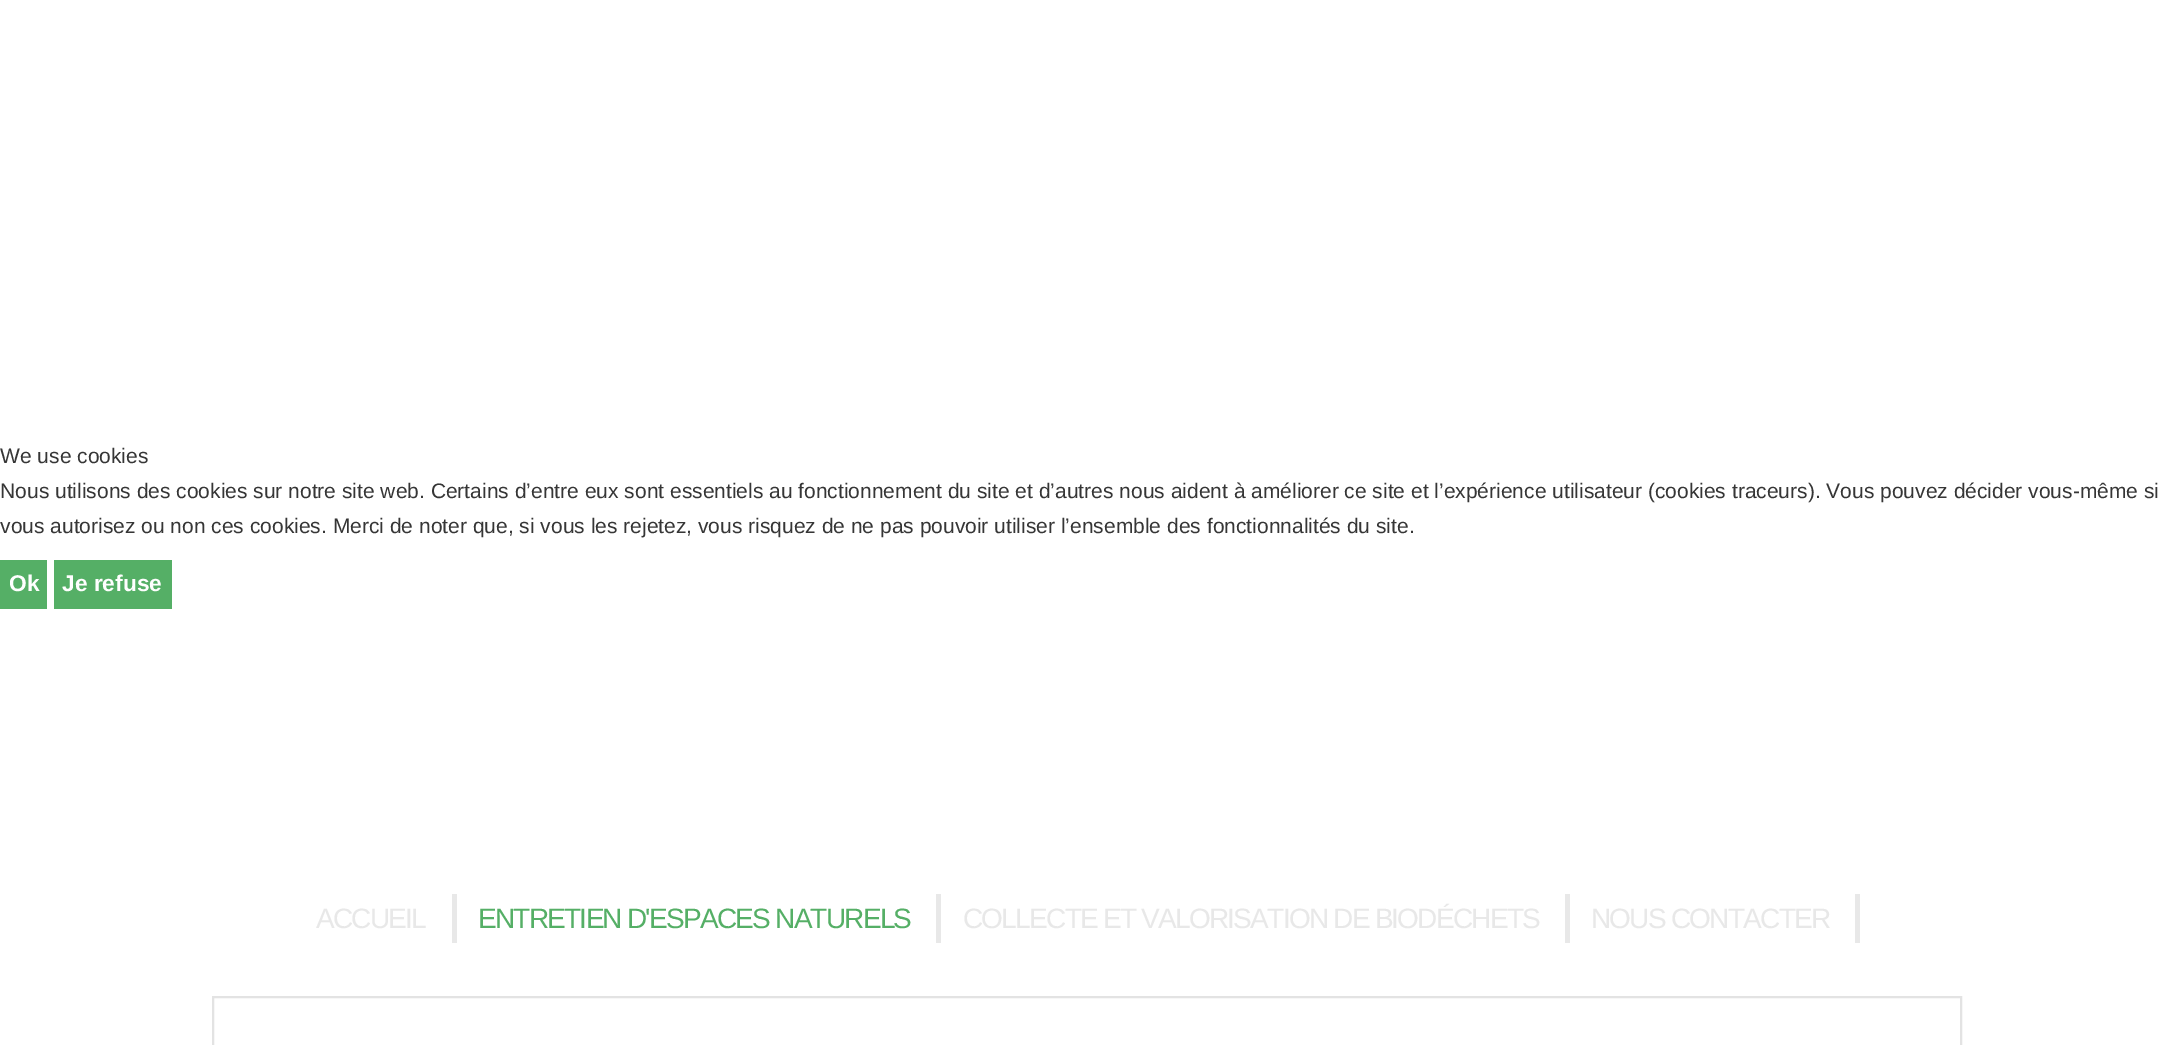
%!PS-Adobe-3.0
%%BoundingBox: 0 0 2173 1045
%%LanguageLevel: 3
%%Pages: 1
%%EndComments
%%BeginProlog
/setink { 3 { 255 div 3 1 roll } repeat setrgbcolor } def
/usefont { [ exch dup neg 0 0 3 -1 roll 0 0 ] selectfont } def
/drawtext { setink usefont moveto show } def
/fillbox { setink rectfill } def
%%EndProlog
%%BeginSetup
<< /PageSize [2173 1045] >> setpagedevice
%%EndSetup
%%Page: 1 1
0 1045 translate 1 -1 scale
4 setmiterlimit
0 0 2173 1045 255 255 255 fillbox
(We use cookies) 0 463 /LiberationSans-Regular 21 54 54 54 drawtext
(Nous utilisons des cookies sur notre site web. Certains d’entre eux sont essentiels au fonctionnement du site et d’autres nous aident à améliorer ce site et l’expérience utilisateur \(cookies traceurs\). Vous pouvez décider vous-même si) 0 498 /LiberationSans-Regular 21 54 54 54 drawtext
(vous autorisez ou non ces cookies. Merci de noter que, si vous les rejetez, vous risquez de ne pas pouvoir utiliser l’ensemble des fonctionnalités du site.) 0 533 /LiberationSans-Regular 21 54 54 54 drawtext
0 560 47 49 85 175 102 fillbox
(Ok) 9 591 /LiberationSans-Bold 22.75 255 255 255 drawtext
54 560 118 49 85 175 102 fillbox
(Je refuse) 62 591 /LiberationSans-Bold 22.75 255 255 255 drawtext
452 894 5 49 232 232 232 fillbox
/LiberationSans-Regular 28 usefont
316 928 moveto -1.75 0 (ACCUEIL) ashow
936 894 5 49 232 232 232 fillbox
85 175 102 setink
478 928 moveto -1.75 0 (ENTRETIEN D'ESPACES NATURELS) ashow
1565 894 5 49 232 232 232 fillbox
963 928 moveto -1.75 0 (COLLECTE ET VALORISATION DE BIODÉCHETS) ashow
1855 894 5 49 232 232 232 fillbox
1591 928 moveto -1.75 0 (NOUS CONTACTER) ashow
227 227 227 setink
2 setlinewidth
213 997 1748 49 rectstroke
showpage
%%EOF
